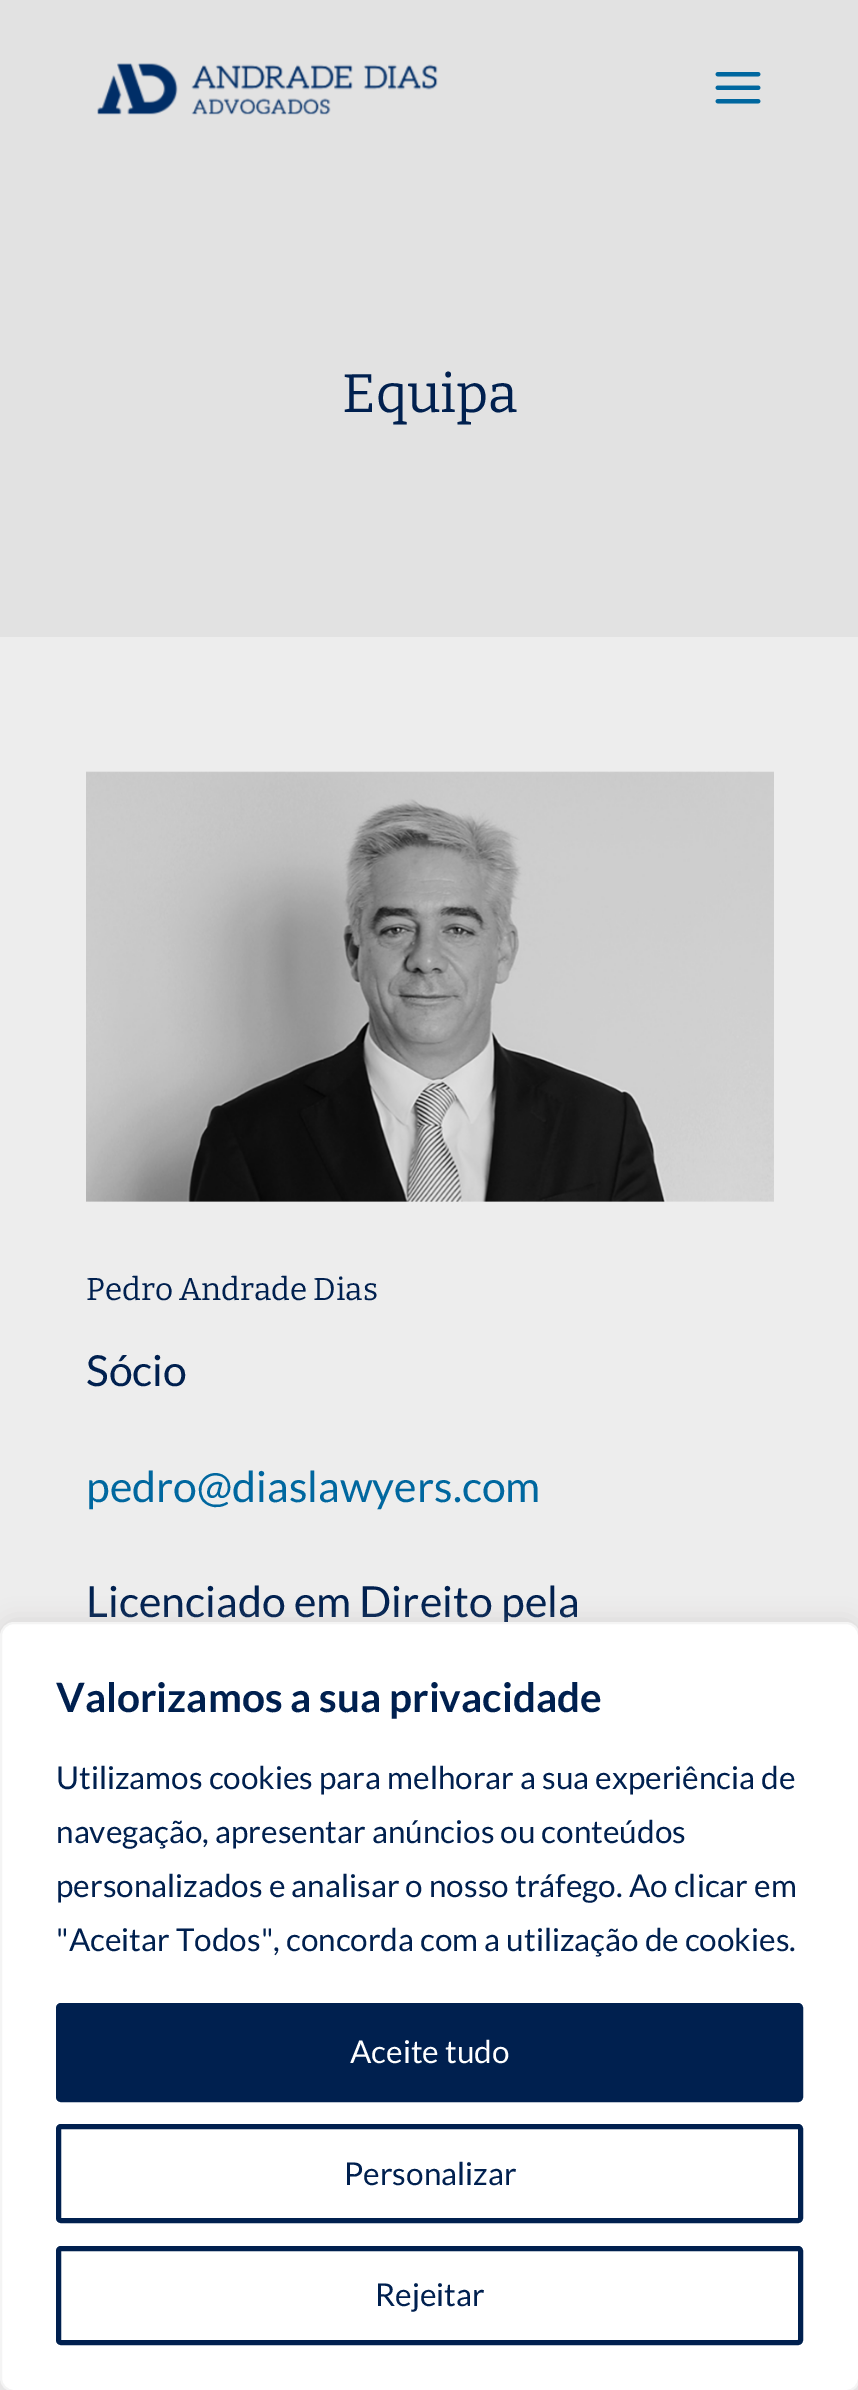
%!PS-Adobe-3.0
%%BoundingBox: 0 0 858 2390
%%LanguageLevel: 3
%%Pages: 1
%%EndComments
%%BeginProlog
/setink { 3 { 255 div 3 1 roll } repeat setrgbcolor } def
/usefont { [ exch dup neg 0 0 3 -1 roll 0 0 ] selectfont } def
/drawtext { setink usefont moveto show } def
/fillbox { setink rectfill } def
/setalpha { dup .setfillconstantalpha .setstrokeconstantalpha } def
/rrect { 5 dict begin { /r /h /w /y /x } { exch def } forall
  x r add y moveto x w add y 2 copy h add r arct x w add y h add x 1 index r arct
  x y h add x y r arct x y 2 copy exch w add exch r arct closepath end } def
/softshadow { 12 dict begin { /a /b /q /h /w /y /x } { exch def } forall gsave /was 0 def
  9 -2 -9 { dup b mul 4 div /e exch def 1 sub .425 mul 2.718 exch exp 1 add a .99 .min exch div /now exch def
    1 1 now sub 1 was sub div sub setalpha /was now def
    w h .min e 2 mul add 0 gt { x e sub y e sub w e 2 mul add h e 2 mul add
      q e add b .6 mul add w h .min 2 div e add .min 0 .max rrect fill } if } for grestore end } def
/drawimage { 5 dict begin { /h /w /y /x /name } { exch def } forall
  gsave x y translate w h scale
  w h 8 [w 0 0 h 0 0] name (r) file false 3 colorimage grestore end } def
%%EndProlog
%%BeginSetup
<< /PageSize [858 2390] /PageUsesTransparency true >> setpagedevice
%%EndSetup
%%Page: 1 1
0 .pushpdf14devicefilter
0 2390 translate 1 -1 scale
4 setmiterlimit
0 0 858 2390 237 237 237 fillbox
0 0 858 637 226 226 226 fillbox
(assets/img1.rgb) 97 63 341 52 drawimage
(assets/img2.rgb) 715 72 46 32 drawimage
(Equipa) 342 412 /Bitter-Regular 54 0 32 79 drawtext
(assets/img3.rgb) 86 771 688 431 drawimage
(Pedro Andrade Dias) 86 1300 /Bitter-Regular 31.5 0 32 79 drawtext
(Sócio) 86 1386 /Lato-Regular 42.75 0 32 79 drawtext
(pedro@diaslawyers.com) 86 1502 /Lato-Regular 42.75 0 103 159 drawtext
(Licenciado em Direito pela) 86 1617 /Lato-Regular 42.75 0 32 79 drawtext
172 171 171 setink
0 1620 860 770 14 11 0.3 softshadow
255 255 255 setink
1 1623 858 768 13 rrect gsave fill grestore
244 244 244 setink
2 setlinewidth
stroke
(Valorizamos a sua privacidade) 56 1712 /Lato-Bold 40.5 0 32 79 drawtext
(Utilizamos cookies para melhorar a sua experiência de) 56 1789 /Lato-Regular 31.5 0 32 79 drawtext
(navegação, apresentar anúncios ou conteúdos) 56 1843 /Lato-Regular 31.5 0 32 79 drawtext
(personalizados e analisar o nosso tráfego. Ao clicar em) 56 1897 /Lato-Regular 31.5 0 32 79 drawtext
("Aceitar Todos", concorda com a utilização de cookies.) 56 1951 /Lato-Regular 31.5 0 32 79 drawtext
58.5 2005.5 742 94 2.5 rrect gsave fill grestore
5 setlinewidth
stroke
(Aceite tudo) 350 2063 /Lato-Regular 31.5 255 255 255 drawtext
0 32 79 setink
58.5 2126.5 742 94 2.5 rrect stroke
(Personalizar) 344 2185 /Lato-Regular 31.5 0 32 79 drawtext
58.5 2248.5 742 94 2.5 rrect stroke
(Rejeitar) 375 2306 /Lato-Regular 31.5 0 32 79 drawtext
.poppdf14devicefilter showpage
%%EOF
